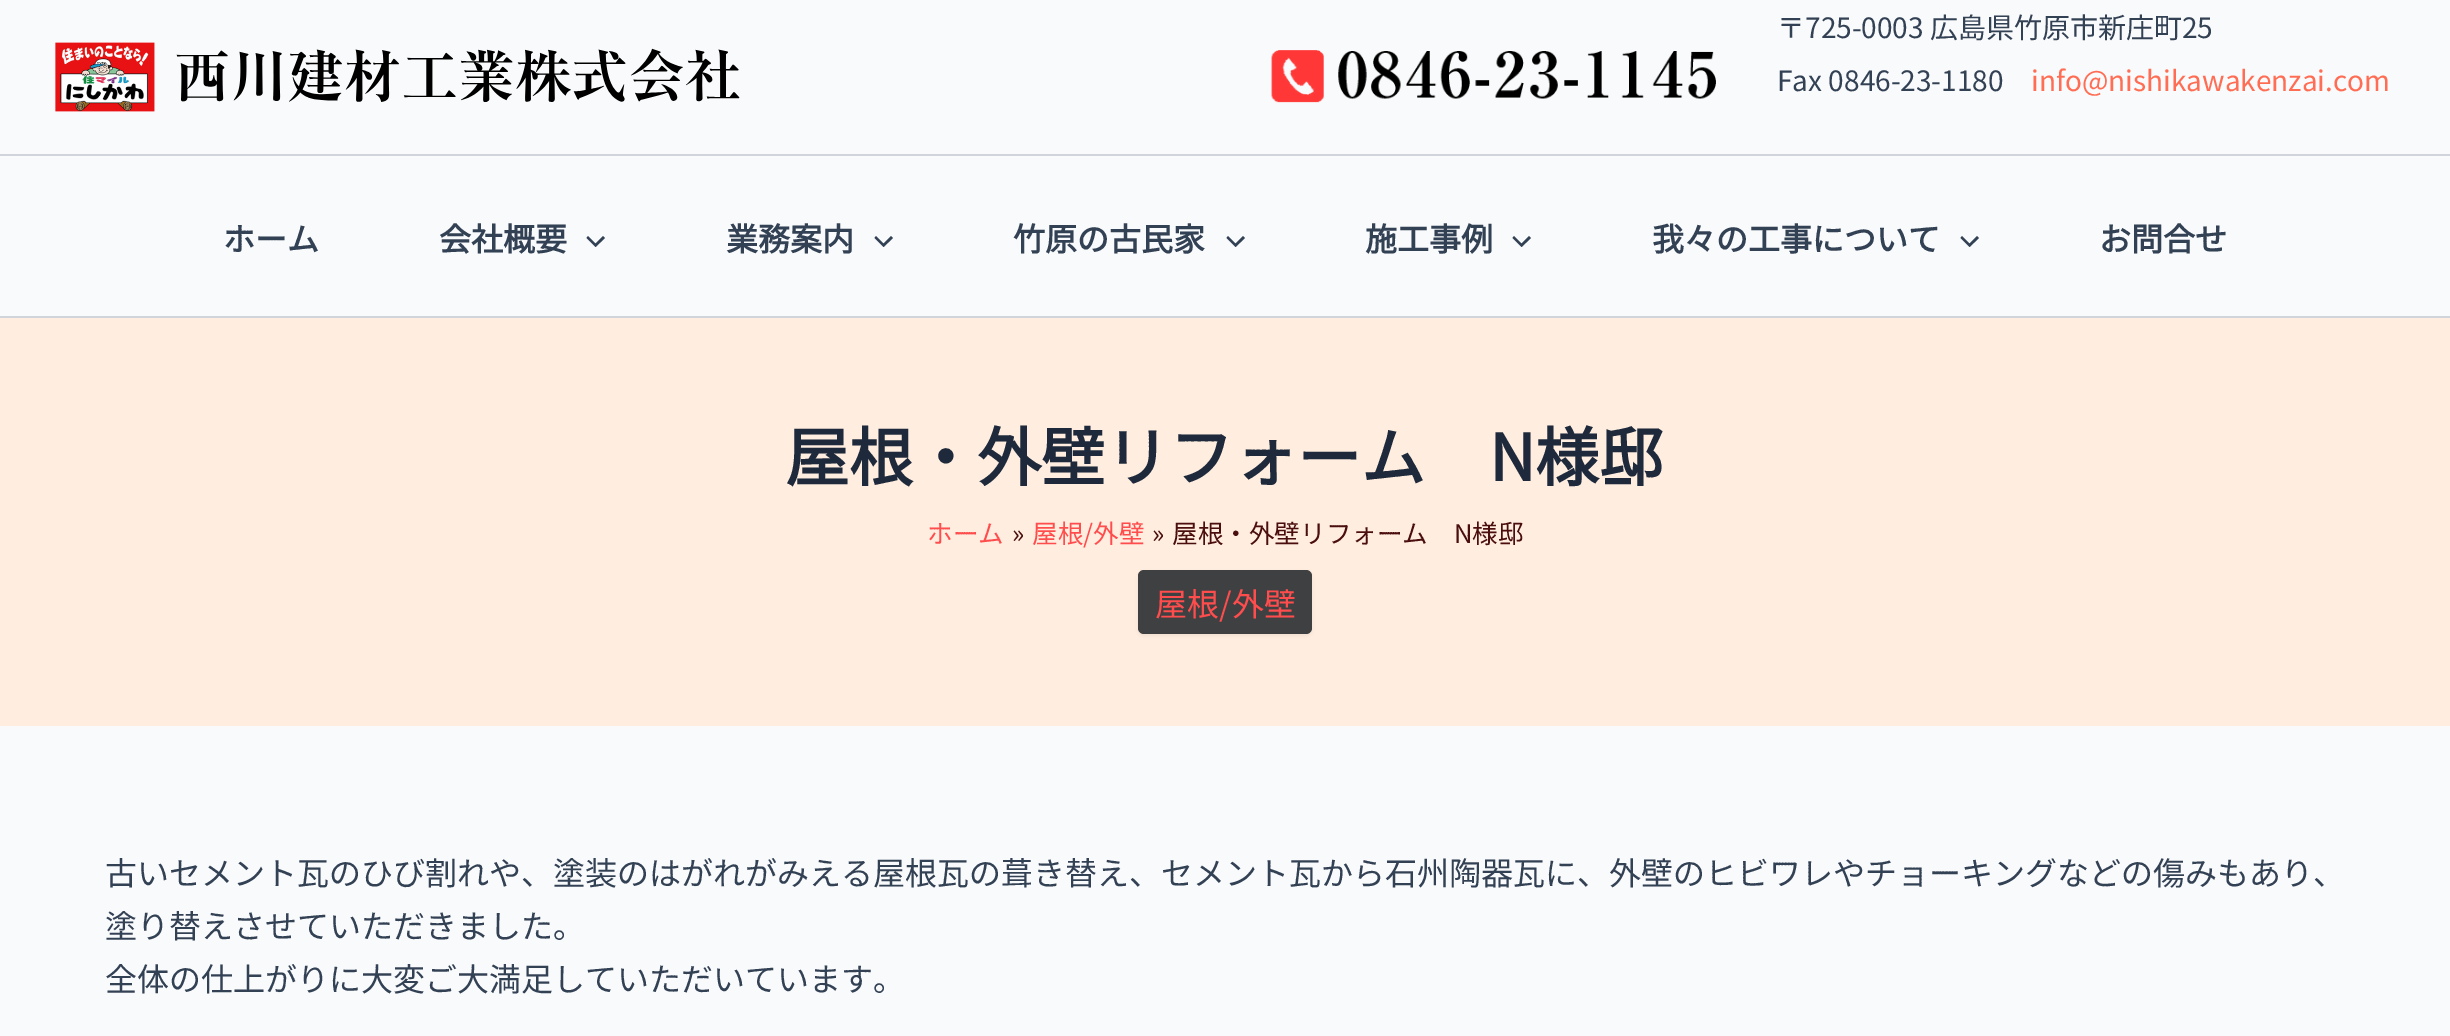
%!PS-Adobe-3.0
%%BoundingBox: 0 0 2450 1036
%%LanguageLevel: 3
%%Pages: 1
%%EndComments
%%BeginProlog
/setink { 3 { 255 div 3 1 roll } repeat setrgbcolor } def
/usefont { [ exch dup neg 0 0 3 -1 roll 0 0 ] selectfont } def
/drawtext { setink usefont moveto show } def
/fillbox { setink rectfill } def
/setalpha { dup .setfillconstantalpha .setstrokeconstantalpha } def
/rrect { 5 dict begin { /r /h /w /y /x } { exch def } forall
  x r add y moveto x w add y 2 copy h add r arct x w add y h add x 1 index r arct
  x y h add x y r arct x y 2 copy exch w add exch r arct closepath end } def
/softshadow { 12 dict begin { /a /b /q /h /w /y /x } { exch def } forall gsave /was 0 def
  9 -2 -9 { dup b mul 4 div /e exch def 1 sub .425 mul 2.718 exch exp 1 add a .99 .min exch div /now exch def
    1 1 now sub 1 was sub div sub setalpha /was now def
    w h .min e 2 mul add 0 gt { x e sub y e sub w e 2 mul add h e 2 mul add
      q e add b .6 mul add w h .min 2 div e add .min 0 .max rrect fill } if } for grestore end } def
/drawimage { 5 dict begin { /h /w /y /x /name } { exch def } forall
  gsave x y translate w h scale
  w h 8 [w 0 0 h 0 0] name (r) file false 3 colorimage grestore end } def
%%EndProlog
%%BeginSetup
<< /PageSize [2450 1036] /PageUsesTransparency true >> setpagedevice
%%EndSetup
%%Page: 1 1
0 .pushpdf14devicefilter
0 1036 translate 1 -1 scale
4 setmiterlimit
0 0 2450 1036 249 250 251 fillbox
0 154 2450 2 209 213 219 fillbox
(assets/img1.rgb) 55 42 685 70 drawimage
(assets/img2.rgb) 1271 50 445 53 drawimage
(〒725-0003 広島県竹原市新庄町25) 1777 38 /NotoSansJP-Regular 28 51 65 85 drawtext
(Fax 0846-23-1180) 1777 91 /NotoSansJP-Regular 28 51 65 85 drawtext
(info@nishikawakenzai.com) 2031 91 /NotoSansJP-Regular 28 255 110 84 drawtext
0 316 2450 2 209 213 219 fillbox
(ホーム) 223 251 /NotoSansJP-Bold 32 51 65 85 drawtext
(会社概要) 439 251 /NotoSansJP-Bold 32 51 65 85 drawtext
586.5 238 moveto 595.5 247 lineto 605 238 lineto 603 236 lineto 595.5 243.5 lineto 588 236 lineto closepath fill
(業務案内) 726 251 /NotoSansJP-Bold 32 51 65 85 drawtext
874.5 238 moveto 883.5 247 lineto 893 238 lineto 891 236 lineto 883.5 243.5 lineto 876 236 lineto closepath fill
(竹原の古民家) 1013 251 /NotoSansJP-Bold 32 51 65 85 drawtext
1226.5 238 moveto 1235.5 247 lineto 1245 238 lineto 1243 236 lineto 1235.5 243.5 lineto 1228 236 lineto closepath fill
(施工事例) 1365 251 /NotoSansJP-Bold 32 51 65 85 drawtext
1512.5 238 moveto 1521.5 247 lineto 1531 238 lineto 1529 236 lineto 1521.5 243.5 lineto 1514 236 lineto closepath fill
(我々の工事について) 1652 251 /NotoSansJP-Bold 32 51 65 85 drawtext
1960.5 238 moveto 1969.5 247 lineto 1979 238 lineto 1977 236 lineto 1969.5 243.5 lineto 1962 236 lineto closepath fill
(お問合せ) 2099 251 /NotoSansJP-Bold 32 51 65 85 drawtext
0 318 2450 408 255 238 224 fillbox
(屋根・外壁リフォーム　N様邸) 785 481 /NotoSansJP-Bold 64 30 41 59 drawtext
(ホーム) 927 543 /NotoSansJP-Regular 25.6 255 77 77 drawtext
(») 1012 543 /NotoSansJP-Regular 25.6 75 14 14 drawtext
(屋根/外壁) 1032 543 /NotoSansJP-Regular 25.6 255 77 77 drawtext
(») 1152 543 /NotoSansJP-Regular 25.6 75 14 14 drawtext
(屋根・外壁リフォーム　N様邸) 1172 543 /NotoSansJP-Regular 25.6 75 14 14 drawtext
0 0 0 setink
1138 572 174 64 6 2 0.05 softshadow
63 64 66 setink
1138 570 174 64 6 rrect fill
(屋根/外壁) 1155 616 /NotoSansJP-Regular 32 255 77 77 drawtext
(古いセメント瓦のひび割れや、塗装のはがれがみえる屋根瓦の葺き替え、セメント瓦から石州陶器瓦に、外壁のヒビワレやチョーキングなどの傷みもあり、) 105 885 /NotoSansJP-Regular 32 51 65 85 drawtext
(塗り替えさせていただきました。) 105 938 /NotoSansJP-Regular 32 51 65 85 drawtext
(全体の仕上がりに大変ご大満足していただいています。) 105 991 /NotoSansJP-Regular 32 51 65 85 drawtext
.poppdf14devicefilter showpage
%%EOF
